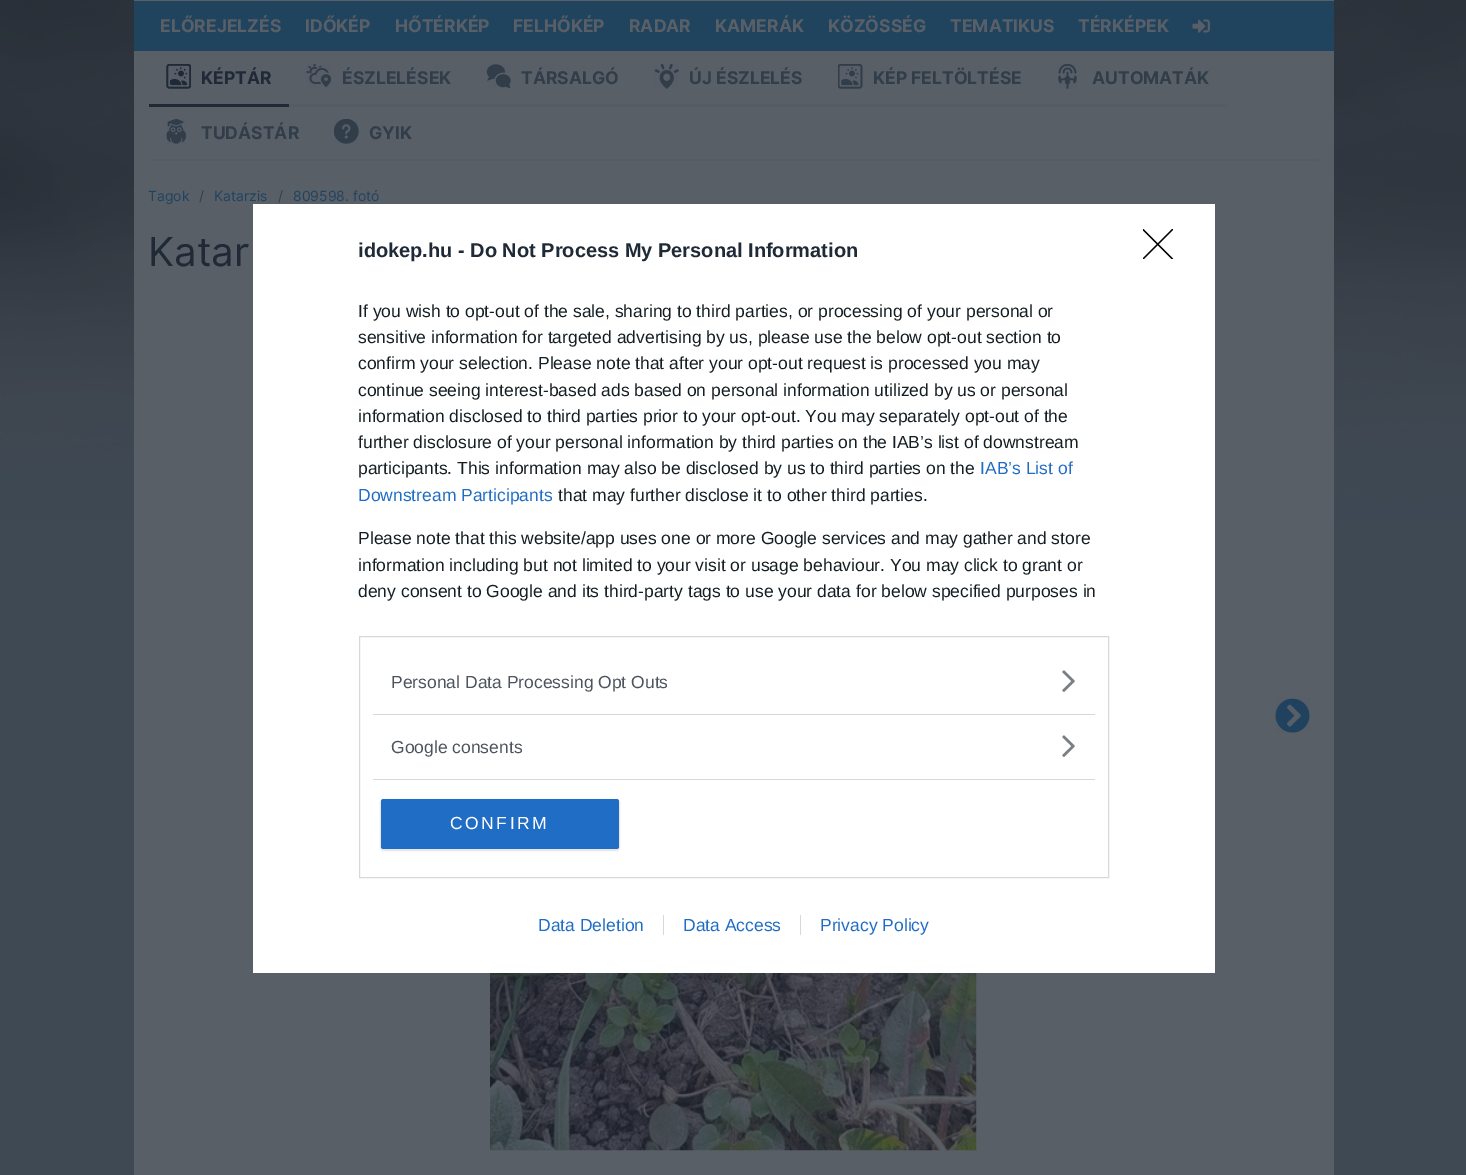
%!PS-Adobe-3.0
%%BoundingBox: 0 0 1466 1175
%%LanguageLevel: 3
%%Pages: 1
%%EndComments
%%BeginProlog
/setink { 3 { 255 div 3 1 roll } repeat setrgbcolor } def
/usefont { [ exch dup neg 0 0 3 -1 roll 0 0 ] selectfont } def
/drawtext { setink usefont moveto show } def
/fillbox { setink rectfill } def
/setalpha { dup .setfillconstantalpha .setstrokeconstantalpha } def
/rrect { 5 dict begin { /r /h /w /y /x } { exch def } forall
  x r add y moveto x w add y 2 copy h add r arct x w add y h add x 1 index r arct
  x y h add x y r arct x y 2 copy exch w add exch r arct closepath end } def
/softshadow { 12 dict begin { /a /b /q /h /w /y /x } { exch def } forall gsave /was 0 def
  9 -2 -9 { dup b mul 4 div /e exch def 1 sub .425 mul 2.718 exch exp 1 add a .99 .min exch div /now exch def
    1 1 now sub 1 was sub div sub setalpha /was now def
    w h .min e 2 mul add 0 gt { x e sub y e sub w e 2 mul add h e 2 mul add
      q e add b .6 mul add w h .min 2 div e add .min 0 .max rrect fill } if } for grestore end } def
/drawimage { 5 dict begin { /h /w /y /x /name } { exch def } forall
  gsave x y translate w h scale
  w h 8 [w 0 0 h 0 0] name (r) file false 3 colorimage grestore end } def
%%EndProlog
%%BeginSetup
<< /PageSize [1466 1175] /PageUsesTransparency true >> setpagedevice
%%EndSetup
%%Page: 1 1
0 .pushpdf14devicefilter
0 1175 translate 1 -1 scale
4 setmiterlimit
0 0 1466 1175 62 73 84 fillbox
(assets/img1.rgb) 0 0 1466 521 drawimage
134 0 1200 1 89 95 103 fillbox
134 1 1200 50 32 67 94 fillbox
(ELŐREJELZÉS) 160 32 /Inter-Bold 17.5 89 95 103 drawtext
(IDŐKÉP) 305 32 /Inter-Bold 17.5 89 95 103 drawtext
(HŐTÉRKÉP) 395 32 /Inter-Bold 17.5 89 95 103 drawtext
(FELHŐKÉP) 513 32 /Inter-Bold 17.5 89 95 103 drawtext
(RADAR) 629 32 /Inter-Bold 17.5 89 95 103 drawtext
(KAMERÁK) 715 32 /Inter-Bold 17.5 89 95 103 drawtext
(KÖZÖSSÉG) 828 32 /Inter-Bold 17.5 89 95 103 drawtext
(TEMATIKUS) 950 32 /Inter-Bold 17.5 89 95 103 drawtext
(TÉRKÉPEK) 1078 32 /Inter-Bold 17.5 89 95 103 drawtext
(assets/img2.rgb) 1192 19 18 14 drawimage
134 51 1200 1124 89 95 103 fillbox
149 159 1170 2 86 92 101 fillbox
149 104 140 3 31 42 54 fillbox
(assets/img3.rgb) 166 64 25 25 drawimage
(KÉPTÁR) 201 84 /Inter-Bold 17.5 31 42 54 drawtext
289 104 939 3 86 92 101 fillbox
(assets/img4.rgb) 306 64 25 24 drawimage
(ÉSZLELÉSEK) 342 84 /Inter-Bold 17.5 49 62 74 drawtext
(assets/img5.rgb) 486 64 25 25 drawimage
(TÁRSALGÓ) 521 84 /Inter-Bold 17.5 49 62 74 drawtext
(assets/img6.rgb) 654 64 25 25 drawimage
(ÚJ ÉSZLELÉS) 689 84 /Inter-Bold 17.5 49 62 74 drawtext
(assets/img7.rgb) 838 64 25 25 drawimage
(KÉP FELTÖLTÉSE) 873 84 /Inter-Bold 17.5 49 62 74 drawtext
(assets/img8.rgb) 1058 64 19 25 drawimage
(AUTOMATÁK) 1092 84 /Inter-Bold 17.5 49 62 74 drawtext
(assets/img9.rgb) 166 119 20 25 drawimage
(TUDÁSTÁR) 201 139 /Inter-Bold 17.5 49 62 74 drawtext
(assets/img10.rgb) 334 119 25 25 drawimage
(GYIK) 369 139 /Inter-Bold 17.5 49 62 74 drawtext
(Tagok) 148 201 /Inter-Regular 14 32 67 94 drawtext
(/) 199 201 /Inter-Regular 14 49 62 74 drawtext
(Katarzis) 214 201 /Inter-Regular 14 32 67 94 drawtext
(/) 278 201 /Inter-Regular 14 49 62 74 drawtext
(809598. fotó) 293 201 /Inter-Regular 14 32 67 94 drawtext
(Katar) 148 266 /Inter-Regular 40 31 42 54 drawtext
253 204 962 769 255 255 255 fillbox
(idokep.hu - Do Not Process My Personal Information) 358 257 /LiberationSans-Bold 20 31 42 54 drawtext
(If you wish to opt-out of the sale, sharing to third parties, or processing of your personal or) 358 317 /LiberationSans-Regular 17.5 20 30 35 drawtext
(sensitive information for targeted advertising by us, please use the below opt-out section to) 358 343 /LiberationSans-Regular 17.5 20 30 35 drawtext
(confirm your selection. Please note that after your opt-out request is processed you may) 358 369 /LiberationSans-Regular 17.5 20 30 35 drawtext
(continue seeing interest-based ads based on personal information utilized by us or personal) 358 396 /LiberationSans-Regular 17.5 20 30 35 drawtext
(information disclosed to third parties prior to your opt-out. You may separately opt-out of the) 358 422 /LiberationSans-Regular 17.5 20 30 35 drawtext
(further disclosure of your personal information by third parties on the IAB’s list of downstream) 358 448 /LiberationSans-Regular 17.5 20 30 35 drawtext
(participants. This information may also be disclosed by us to third parties on the) 358 474 /LiberationSans-Regular 17.5 20 30 35 drawtext
(IAB’s List of) 980 474 /LiberationSans-Regular 17.5 32 109 197 drawtext
(Downstream Participants) 358 501 /LiberationSans-Regular 17.5 32 109 197 drawtext
(that may further disclose it to other third parties.) 558 501 /LiberationSans-Regular 17.5 20 30 35 drawtext
(Please note that this website/app uses one or more Google services and may gather and store) 358 544 /LiberationSans-Regular 17.5 20 30 35 drawtext
(information including but not limited to your visit or usage behaviour. You may click to grant or) 358 571 /LiberationSans-Regular 17.5 20 30 35 drawtext
(deny consent to Google and its third-party tags to use your data for below specified purposes in) 358 597 /LiberationSans-Regular 17.5 20 30 35 drawtext
216 216 216 setink
359.5 636.5 749 241 rectstroke
373 714 722 1 216 216 216 fillbox
(Personal Data Processing Opt Outs) 391 688 /LiberationSans-Regular 17.5 77 84 93 drawtext
(assets/img11.rgb) 1062 670 13 22 drawimage
373 779 722 1 216 216 216 fillbox
(Google consents) 391 753 /LiberationSans-Regular 17.5 77 84 93 drawtext
(assets/img11.rgb) 1062 735 13 22 drawimage
0 0 0 setink
380 799 240 52 4 0.5 0.1 softshadow
32 109 197 setink
381 799 238 50 2.5 rrect fill
255 255 255 setink
450 829 moveto 2.5 0 (CONFIRM) ashow
gsave
1143 229 30 30 rectclip
0 0 0 setink
1.3 setlinewidth
1 setlinecap
1 setlinejoin
1143 229.5 moveto 1172.5 259 lineto 1172.5 229.5 moveto 1143 259 lineto stroke
grestore
(Data Deletion) 538 931 /LiberationSans-Regular 17.5 32 109 197 drawtext
(Data Access) 683 931 /LiberationSans-Regular 17.5 32 109 197 drawtext
663 915 1 20 216 216 216 fillbox
(Privacy Policy) 820 931 /LiberationSans-Regular 17.5 32 109 197 drawtext
800 915 1 20 216 216 216 fillbox
(assets/img12.rgb) 1275 698 35 35 drawimage
(assets/img13.rgb) 490 973 487 178 drawimage
.poppdf14devicefilter showpage
%%EOF
